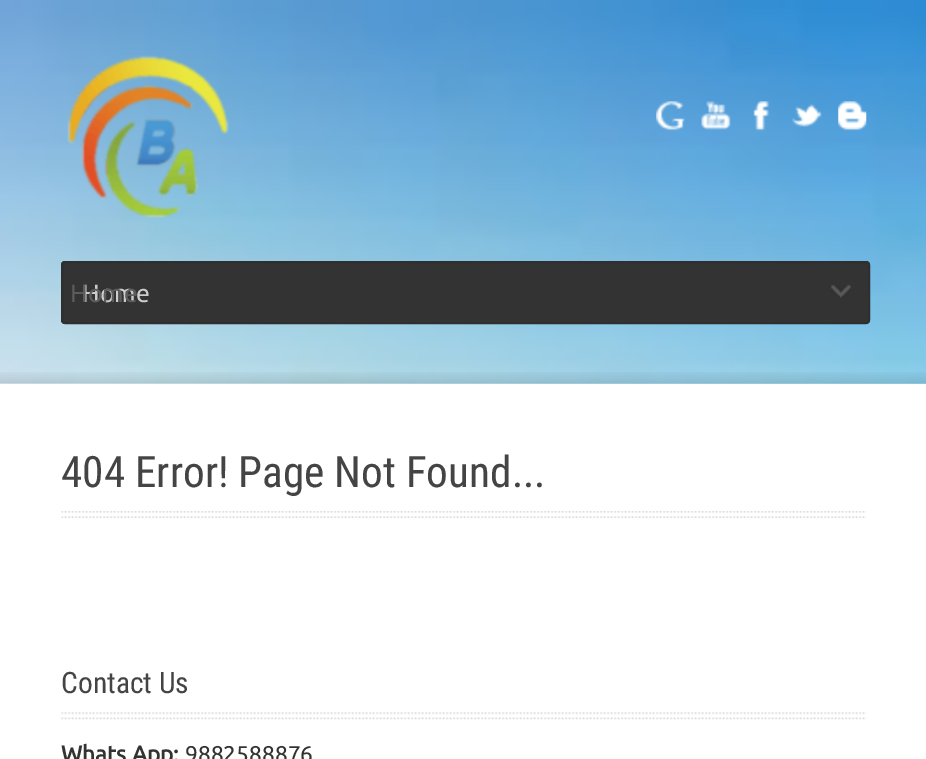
%!PS-Adobe-3.0
%%BoundingBox: 0 0 926 759
%%LanguageLevel: 3
%%Pages: 1
%%EndComments
%%BeginProlog
/setink { 3 { 255 div 3 1 roll } repeat setrgbcolor } def
/usefont { [ exch dup neg 0 0 3 -1 roll 0 0 ] selectfont } def
/drawtext { setink usefont moveto show } def
/fillbox { setink rectfill } def
/rrect { 5 dict begin { /r /h /w /y /x } { exch def } forall
  x r add y moveto x w add y 2 copy h add r arct x w add y h add x 1 index r arct
  x y h add x y r arct x y 2 copy exch w add exch r arct closepath end } def
/drawimage { 5 dict begin { /h /w /y /x /name } { exch def } forall
  gsave x y translate w h scale
  w h 8 [w 0 0 h 0 0] name (r) file false 3 colorimage grestore end } def
%%EndProlog
%%BeginSetup
<< /PageSize [926 759] >> setpagedevice
%%EndSetup
%%Page: 1 1
0 759 translate 1 -1 scale
4 setmiterlimit
0 0 926 759 255 255 255 fillbox
(assets/img1.rgb) 0 0 926 384 drawimage
(assets/img2.rgb) 67 55 162 163 drawimage
(assets/img3.rgb) 656 101 29 30 drawimage
(assets/img4.rgb) 701 101 30 29 drawimage
(assets/img5.rgb) 753 101 17 30 drawimage
(assets/img6.rgb) 792 104 30 23 drawimage
(assets/img7.rgb) 838 101 29 30 drawimage
51 51 51 setink
61 261 809 63 4 rrect fill
(assets/img8.rgb) 831 285 20 13 drawimage
47 47 47 setink
2 setlinewidth
62 262 807 61 3 rrect stroke
(Home) 82 302 /Ubuntu-Regular 25 204 204 204 drawtext
(Home) 70 302 /Ubuntu-Regular 25 92 92 92 drawtext
(assets/img9.rgb) 0 372 926 12 drawimage
(assets/img10.rgb) 61 511 806 7 drawimage
(404 Error! Page Not Found...) 61 487 /RobotoCondensed-Regular 43.25 68 68 68 drawtext
(assets/img11.rgb) 61 712 806 8 drawimage
(Contact Us) 61 693 /RobotoCondensed-Regular 29.5 68 68 68 drawtext
(Whats App:) 61 762 /Ubuntu-Bold 22.75 51 51 51 drawtext
(9882588876) 185 762 /Ubuntu-Regular 22.75 51 51 51 drawtext
showpage
%%EOF
